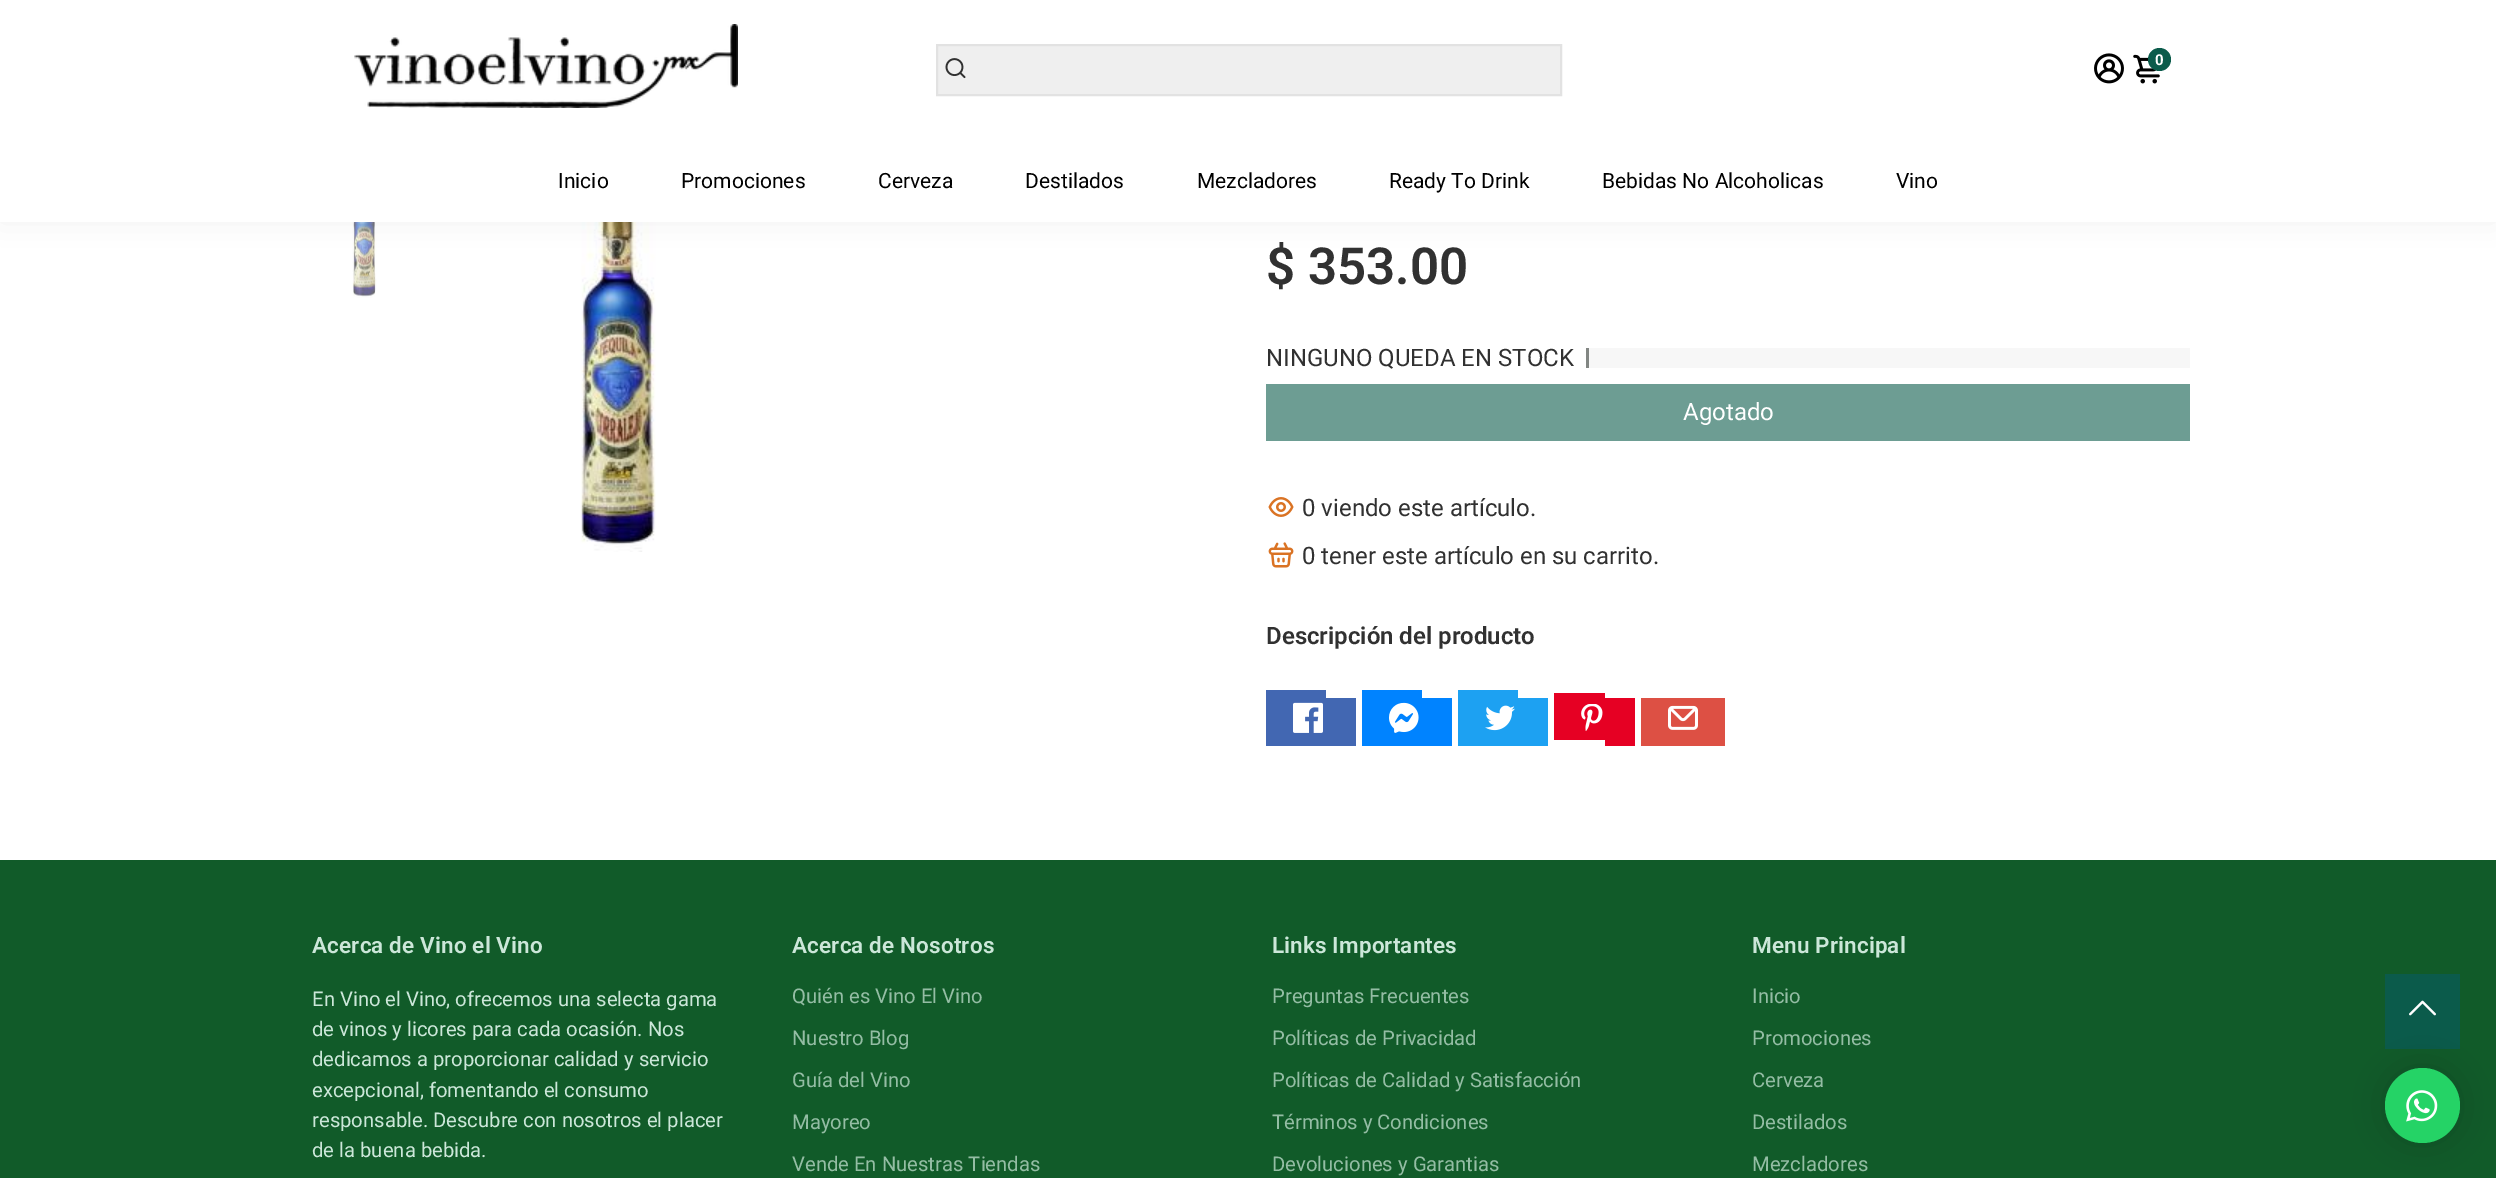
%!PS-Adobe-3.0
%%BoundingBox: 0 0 2496 1178
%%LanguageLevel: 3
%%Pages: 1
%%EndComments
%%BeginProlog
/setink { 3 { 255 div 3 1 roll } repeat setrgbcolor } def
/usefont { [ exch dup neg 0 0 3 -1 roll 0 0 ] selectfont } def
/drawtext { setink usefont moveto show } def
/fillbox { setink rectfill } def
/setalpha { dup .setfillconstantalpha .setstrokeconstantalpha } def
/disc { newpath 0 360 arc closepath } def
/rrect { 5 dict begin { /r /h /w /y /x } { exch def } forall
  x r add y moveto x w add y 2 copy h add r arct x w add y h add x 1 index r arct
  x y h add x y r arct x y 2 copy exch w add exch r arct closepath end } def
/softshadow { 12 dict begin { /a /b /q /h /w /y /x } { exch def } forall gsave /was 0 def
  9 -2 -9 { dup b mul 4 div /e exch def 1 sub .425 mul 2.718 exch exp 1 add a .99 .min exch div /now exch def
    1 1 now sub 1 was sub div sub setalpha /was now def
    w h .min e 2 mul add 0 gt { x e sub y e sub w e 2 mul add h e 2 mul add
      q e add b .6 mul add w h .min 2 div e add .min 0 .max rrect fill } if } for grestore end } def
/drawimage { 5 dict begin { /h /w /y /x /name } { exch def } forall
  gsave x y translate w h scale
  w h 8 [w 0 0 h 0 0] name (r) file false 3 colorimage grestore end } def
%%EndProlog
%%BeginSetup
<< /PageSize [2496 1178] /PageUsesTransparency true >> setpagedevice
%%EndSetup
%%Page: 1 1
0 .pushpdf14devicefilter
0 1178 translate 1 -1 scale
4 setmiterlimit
0 0 2496 1178 255 255 255 fillbox
(assets/img5.rgb) 352 222 25 76 drawimage
(assets/img6.rgb) 580 222 76 330 drawimage
0 0 0 setink
0 0 2496 222 0 15 0.06 softshadow
0 0 2496 222 255 255 255 fillbox
(assets/img1.rgb) 354 24 384 84 drawimage
239 239 239 setink
937 45 moveto 1561 45 lineto 1561 95 lineto 937 95 lineto closepath gsave fill grestore
226 226 226 setink
2 setlinewidth
stroke
(assets/img2.rgb) 945 58 21 21 drawimage
(assets/img3.rgb) 2094 53 30 31 drawimage
(assets/img4.rgb) 2133 54 27 30 drawimage
11 91 75 setink
2159.5 59.5 11.5 disc fill
(0) 2155 65 /Roboto-Bold 15 255 255 255 drawtext
(Inicio) 558 188 /Roboto-Regular 21 0 0 0 drawtext
(Promociones) 681 188 /Roboto-Regular 21 0 0 0 drawtext
(Cerveza) 878 188 /Roboto-Regular 21 0 0 0 drawtext
(Destilados) 1025 188 /Roboto-Regular 21 0 0 0 drawtext
(Mezcladores) 1197 188 /Roboto-Regular 21 0 0 0 drawtext
(Ready To Drink) 1389 188 /Roboto-Regular 21 0 0 0 drawtext
(Bebidas No Alcoholicas) 1602 188 /Roboto-Regular 21 0 0 0 drawtext
(Vino) 1896 188 /Roboto-Regular 21 0 0 0 drawtext
($ 353.00) 1266 284 /Roboto-SemiBold 51 49 49 49 drawtext
(NINGUNO QUEDA EN STOCK) 1266 366 /Roboto-Regular 24 49 49 49 drawtext
1589 348 601 20 247 247 247 fillbox
1586 348 3 20 130 134 131 fillbox
1266 384 924 57 109 157 147 fillbox
(Agotado) 1683 420 /Roboto-Regular 24 255 255 255 drawtext
(assets/img7.rgb) 1268 497 26 20 drawimage
(0 viendo este artículo.) 1302 516 /Roboto-Regular 24 49 49 49 drawtext
(assets/img8.rgb) 1268 542 26 26 drawimage
(0 tener este artículo en su carrito.) 1302 564 /Roboto-Regular 24 49 49 49 drawtext
(Descripción del producto) 1266 644 /Roboto-SemiBold 24 49 49 49 drawtext
1266 690 60 56 66 103 178 fillbox
1326 698 30 48 66 103 178 fillbox
(assets/img9.rgb) 1293 702 30 31 drawimage
1362 690 60 56 0 131 255 fillbox
1422 698 30 48 0 131 255 fillbox
(assets/img10.rgb) 1389 702 30 31 drawimage
1458 690 60 56 29 161 242 fillbox
1518 698 30 48 29 161 242 fillbox
(assets/img11.rgb) 1485 705 30 26 drawimage
1554 693 51 47 230 0 35 fillbox
1605 698 30 48 230 0 35 fillbox
1641 698 84 48 221 80 68 fillbox
(assets/img12.rgb) 1668 705 30 25 drawimage
(assets/img13.rgb) 1581 704 22 27 drawimage
0 860 2496 318 17 91 41 fillbox
/Roboto-SemiBold 22.5 usefont
204 231 217 setink
312 953 moveto 0.15 0 (Acerca de Vino el Vino) ashow
(En Vino el Vino, ofrecemos una selecta gama) 312 1006 /Roboto-Regular 20.25 204 231 217 drawtext
(de vinos y licores para cada ocasión. Nos) 312 1036 /Roboto-Regular 20.25 204 231 217 drawtext
(dedicamos a proporcionar calidad y servicio) 312 1066 /Roboto-Regular 20.25 204 231 217 drawtext
(excepcional, fomentando el consumo) 312 1097 /Roboto-Regular 20.25 204 231 217 drawtext
(responsable. Descubre con nosotros el placer) 312 1127 /Roboto-Regular 20.25 204 231 217 drawtext
(de la buena bebida.) 312 1157 /Roboto-Regular 20.25 204 231 217 drawtext
/Roboto-SemiBold 22.5 usefont
792 953 moveto 0.15 0 (Acerca de Nosotros) ashow
(Quién es Vino El Vino) 792 1003 /Roboto-Regular 20.25 148 189 164 drawtext
(Nuestro Blog) 792 1045 /Roboto-Regular 20.25 148 189 164 drawtext
(Guía del Vino) 792 1087 /Roboto-Regular 20.25 148 189 164 drawtext
(Mayoreo) 792 1129 /Roboto-Regular 20.25 148 189 164 drawtext
(Vende En Nuestras Tiendas) 792 1171 /Roboto-Regular 20.25 148 189 164 drawtext
/Roboto-SemiBold 22.5 usefont
204 231 217 setink
1272 953 moveto 0.15 0 (Links Importantes) ashow
(Preguntas Frecuentes) 1272 1003 /Roboto-Regular 20.25 148 189 164 drawtext
(Políticas de Privacidad) 1272 1045 /Roboto-Regular 20.25 148 189 164 drawtext
(Políticas de Calidad y Satisfacción) 1272 1087 /Roboto-Regular 20.25 148 189 164 drawtext
(Términos y Condiciones) 1272 1129 /Roboto-Regular 20.25 148 189 164 drawtext
(Devoluciones y Garantias) 1272 1171 /Roboto-Regular 20.25 148 189 164 drawtext
/Roboto-SemiBold 22.5 usefont
204 231 217 setink
1752 953 moveto 0.15 0 (Menu Principal) ashow
(Inicio) 1752 1003 /Roboto-Regular 20.25 148 189 164 drawtext
(Promociones) 1752 1045 /Roboto-Regular 20.25 148 189 164 drawtext
(Cerveza) 1752 1087 /Roboto-Regular 20.25 148 189 164 drawtext
(Destilados) 1752 1129 /Roboto-Regular 20.25 148 189 164 drawtext
(Mezcladores) 1752 1171 /Roboto-Regular 20.25 148 189 164 drawtext
2385 974 75 75 11 91 75 fillbox
(assets/img14.rgb) 2409 1000 27 16 drawimage
0 0 0 setink
2385 1068 75 75 37.5 19 0.15 softshadow
37 211 102 setink
2422.5 1105.5 37.5 disc fill
(assets/img15.rgb) 2406 1090 32 32 drawimage
.poppdf14devicefilter showpage
%%EOF
